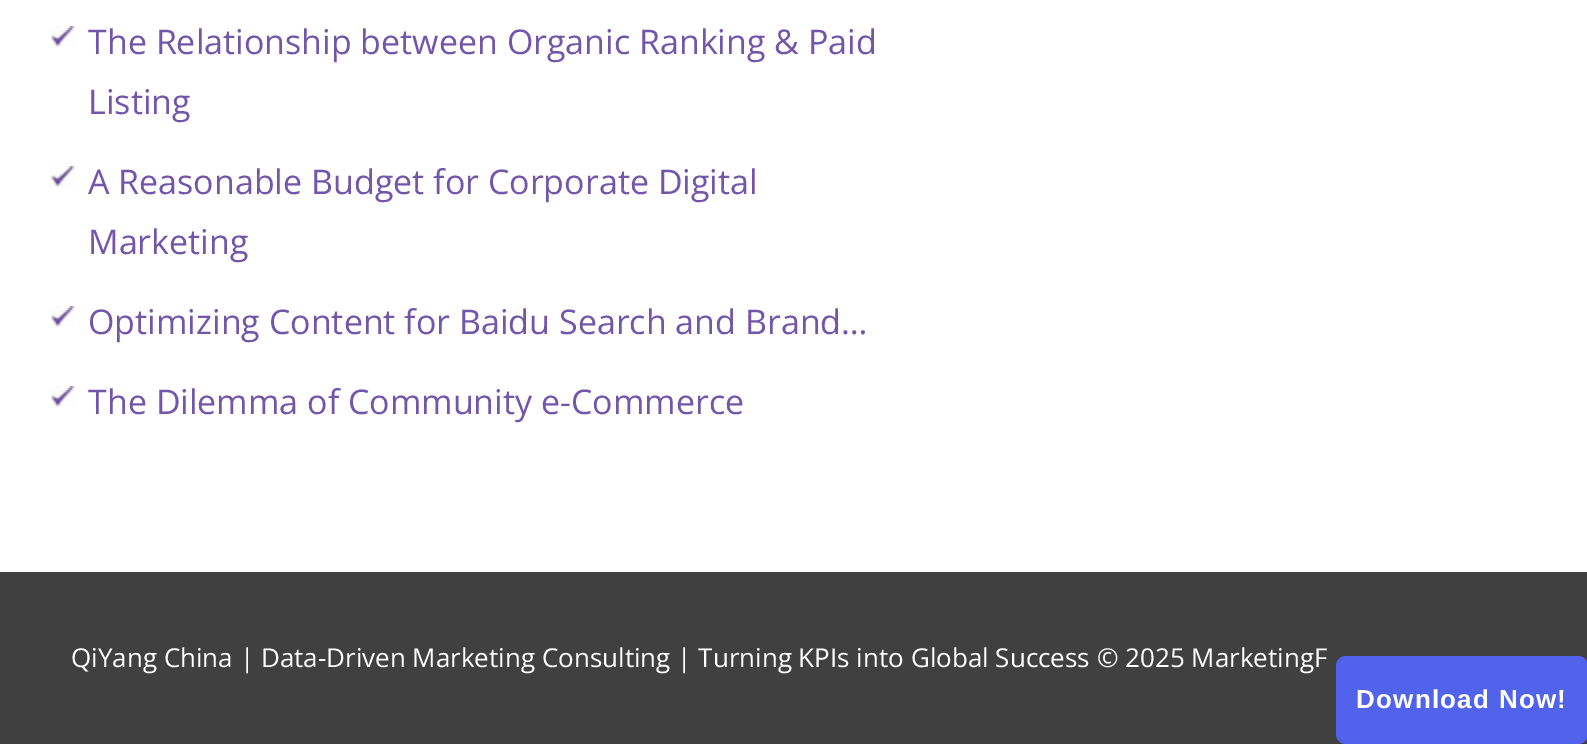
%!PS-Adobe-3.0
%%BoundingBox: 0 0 1587 744
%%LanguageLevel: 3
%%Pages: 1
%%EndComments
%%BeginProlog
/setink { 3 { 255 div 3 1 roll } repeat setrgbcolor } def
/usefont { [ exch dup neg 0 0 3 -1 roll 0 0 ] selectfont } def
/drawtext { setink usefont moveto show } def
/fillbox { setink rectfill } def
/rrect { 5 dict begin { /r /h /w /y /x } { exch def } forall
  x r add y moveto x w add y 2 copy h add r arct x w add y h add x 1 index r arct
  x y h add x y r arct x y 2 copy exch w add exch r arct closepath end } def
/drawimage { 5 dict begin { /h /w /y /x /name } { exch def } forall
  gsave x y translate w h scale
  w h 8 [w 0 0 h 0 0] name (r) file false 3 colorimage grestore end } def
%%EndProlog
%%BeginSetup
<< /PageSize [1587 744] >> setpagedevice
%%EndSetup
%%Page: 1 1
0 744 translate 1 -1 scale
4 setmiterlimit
0 0 1587 744 255 255 255 fillbox
(assets/img1.rgb) 50 26 25 21 drawimage
(The Relationship between Organic Ranking & Paid) 88 54 /OpenSans-Regular 34 115 85 170 drawtext
(Listing) 88 114 /OpenSans-Regular 34 115 85 170 drawtext
(assets/img1.rgb) 50 166 25 21 drawimage
(A Reasonable Budget for Corporate Digital) 88 194 /OpenSans-Regular 34 115 85 170 drawtext
(Marketing) 88 254 /OpenSans-Regular 34 115 85 170 drawtext
(assets/img1.rgb) 50 306 25 21 drawimage
(Optimizing Content for Baidu Search and Brand…) 88 334 /OpenSans-Regular 34 115 85 170 drawtext
(assets/img1.rgb) 50 386 25 21 drawimage
(The Dilemma of Community e-Commerce) 88 414 /OpenSans-Regular 34 115 85 170 drawtext
0 572 1587 172 64 64 64 fillbox
(QiYang China | Data-Driven Marketing Consulting | Turning KPIs into Global Success © 2025 MarketingF) 71 667 /OpenSans-Regular 26 255 255 255 drawtext
82 99 235 setink
1336 656 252 88 10 rrect fill
/LiberationSans-Bold 26 usefont
255 255 255 setink
1356 708 moveto 1.25 0 (Download Now!) ashow
showpage
%%EOF
